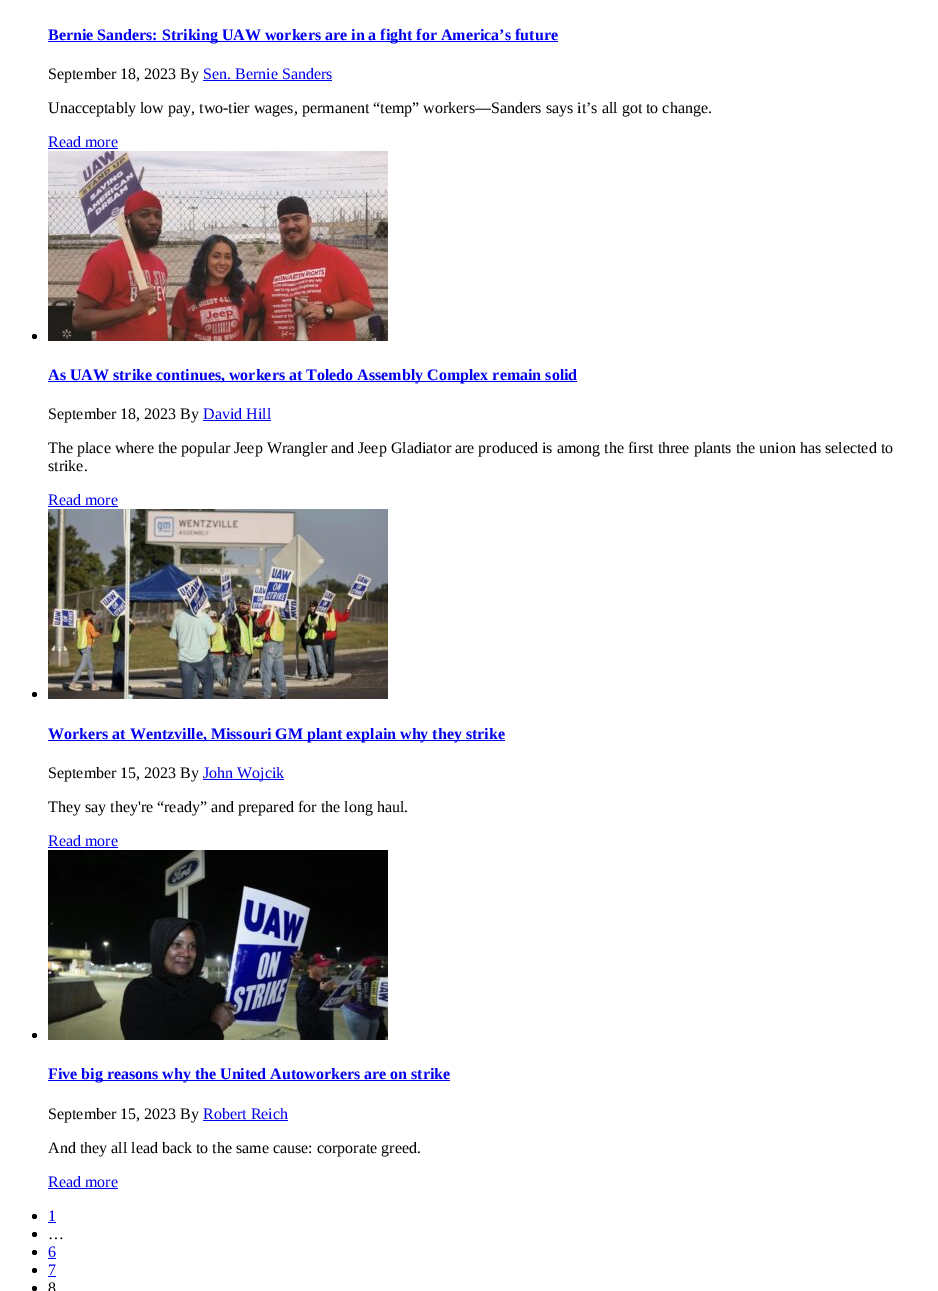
%!PS-Adobe-3.0
%%BoundingBox: 0 0 938 1291
%%LanguageLevel: 3
%%Pages: 1
%%EndComments
%%BeginProlog
/setink { 3 { 255 div 3 1 roll } repeat setrgbcolor } def
/usefont { [ exch dup neg 0 0 3 -1 roll 0 0 ] selectfont } def
/drawtext { setink usefont moveto show } def
/fillbox { setink rectfill } def
/disc { newpath 0 360 arc closepath } def
/drawimage { 5 dict begin { /h /w /y /x /name } { exch def } forall
  gsave x y translate w h scale
  w h 8 [w 0 0 h 0 0] name (r) file false 3 colorimage grestore end } def
%%EndProlog
%%BeginSetup
<< /PageSize [938 1291] >> setpagedevice
%%EndSetup
%%Page: 1 1
0 1291 translate 1 -1 scale
4 setmiterlimit
0 0 938 1291 255 255 255 fillbox
48 41 510 1 0 0 238 fillbox
(Bernie Sanders: Striking UAW workers are in a fight for America’s future) 48 40 /LiberationSerif-Bold 16 0 0 238 drawtext
(September 18, 2023 By) 48 79 /LiberationSerif-Regular 16 0 0 0 drawtext
(Sen. Bernie Sanders) 203 79 /LiberationSerif-Regular 16 0 0 238 drawtext
203 80 129 1 0 0 238 fillbox
(Unacceptably low pay, two-tier wages, permanent “temp” workers—Sanders says it’s all got to change.) 48 113 /LiberationSerif-Regular 16 0 0 0 drawtext
(Read more) 48 147 /LiberationSerif-Regular 16 0 0 238 drawtext
48 148 70 1 0 0 238 fillbox
0 0 0 setink
34.5 336.5 2.5 disc fill
(assets/img1.rgb) 48 151 340 190 drawimage
48 381 529 1 0 0 238 fillbox
(As UAW strike continues, workers at Toledo Assembly Complex remain solid) 48 380 /LiberationSerif-Bold 16 0 0 238 drawtext
(September 18, 2023 By) 48 419 /LiberationSerif-Regular 16 0 0 0 drawtext
(David Hill) 203 419 /LiberationSerif-Regular 16 0 0 238 drawtext
203 420 68 1 0 0 238 fillbox
(The place where the popular Jeep Wrangler and Jeep Gladiator are produced is among the first three plants the union has selected to) 48 453 /LiberationSerif-Regular 16 0 0 0 drawtext
(strike.) 48 471 /LiberationSerif-Regular 16 0 0 0 drawtext
(Read more) 48 505 /LiberationSerif-Regular 16 0 0 238 drawtext
48 506 70 1 0 0 238 fillbox
0 0 0 setink
34.5 694.5 2.5 disc fill
(assets/img2.rgb) 48 509 340 190 drawimage
48 740 457 1 0 0 238 fillbox
(Workers at Wentzville, Missouri GM plant explain why they strike) 48 739 /LiberationSerif-Bold 16 0 0 238 drawtext
(September 15, 2023 By) 48 778 /LiberationSerif-Regular 16 0 0 0 drawtext
203 779 81 1 0 0 238 fillbox
(John Wojcik) 203 778 /LiberationSerif-Regular 16 0 0 238 drawtext
(They say they're “ready” and prepared for the long haul.) 48 812 /LiberationSerif-Regular 16 0 0 0 drawtext
(Read more) 48 846 /LiberationSerif-Regular 16 0 0 238 drawtext
48 847 70 1 0 0 238 fillbox
0 0 0 setink
34.5 1035.5 2.5 disc fill
(assets/img3.rgb) 48 850 340 190 drawimage
48 1080 402 1 0 0 238 fillbox
(Five big reasons why the United Autoworkers are on strike) 48 1079 /LiberationSerif-Bold 16 0 0 238 drawtext
(September 15, 2023 By) 48 1119 /LiberationSerif-Regular 16 0 0 0 drawtext
(Robert Reich) 203 1119 /LiberationSerif-Regular 16 0 0 238 drawtext
203 1120 85 1 0 0 238 fillbox
(And they all lead back to the same cause: corporate greed.) 48 1153 /LiberationSerif-Regular 16 0 0 0 drawtext
(Read more) 48 1187 /LiberationSerif-Regular 16 0 0 238 drawtext
48 1188 70 1 0 0 238 fillbox
0 0 0 setink
34.5 1216.5 2.5 disc fill
(1) 48 1221 /LiberationSerif-Regular 16 0 0 238 drawtext
48 1222 8 1 0 0 238 fillbox
0 0 0 setink
34.5 1234.5 2.5 disc fill
(…) 48 1239 /LiberationSerif-Regular 16 0 0 0 drawtext
34.5 1252.5 2.5 disc fill
(6) 48 1257 /LiberationSerif-Regular 16 0 0 238 drawtext
48 1258 8 1 0 0 238 fillbox
0 0 0 setink
34.5 1270.5 2.5 disc fill
(7) 48 1275 /LiberationSerif-Regular 16 0 0 238 drawtext
48 1276 8 1 0 0 238 fillbox
0 0 0 setink
34.5 1288.5 2.5 disc fill
(8) 48 1293 /LiberationSerif-Regular 16 0 0 0 drawtext
showpage
%%EOF
